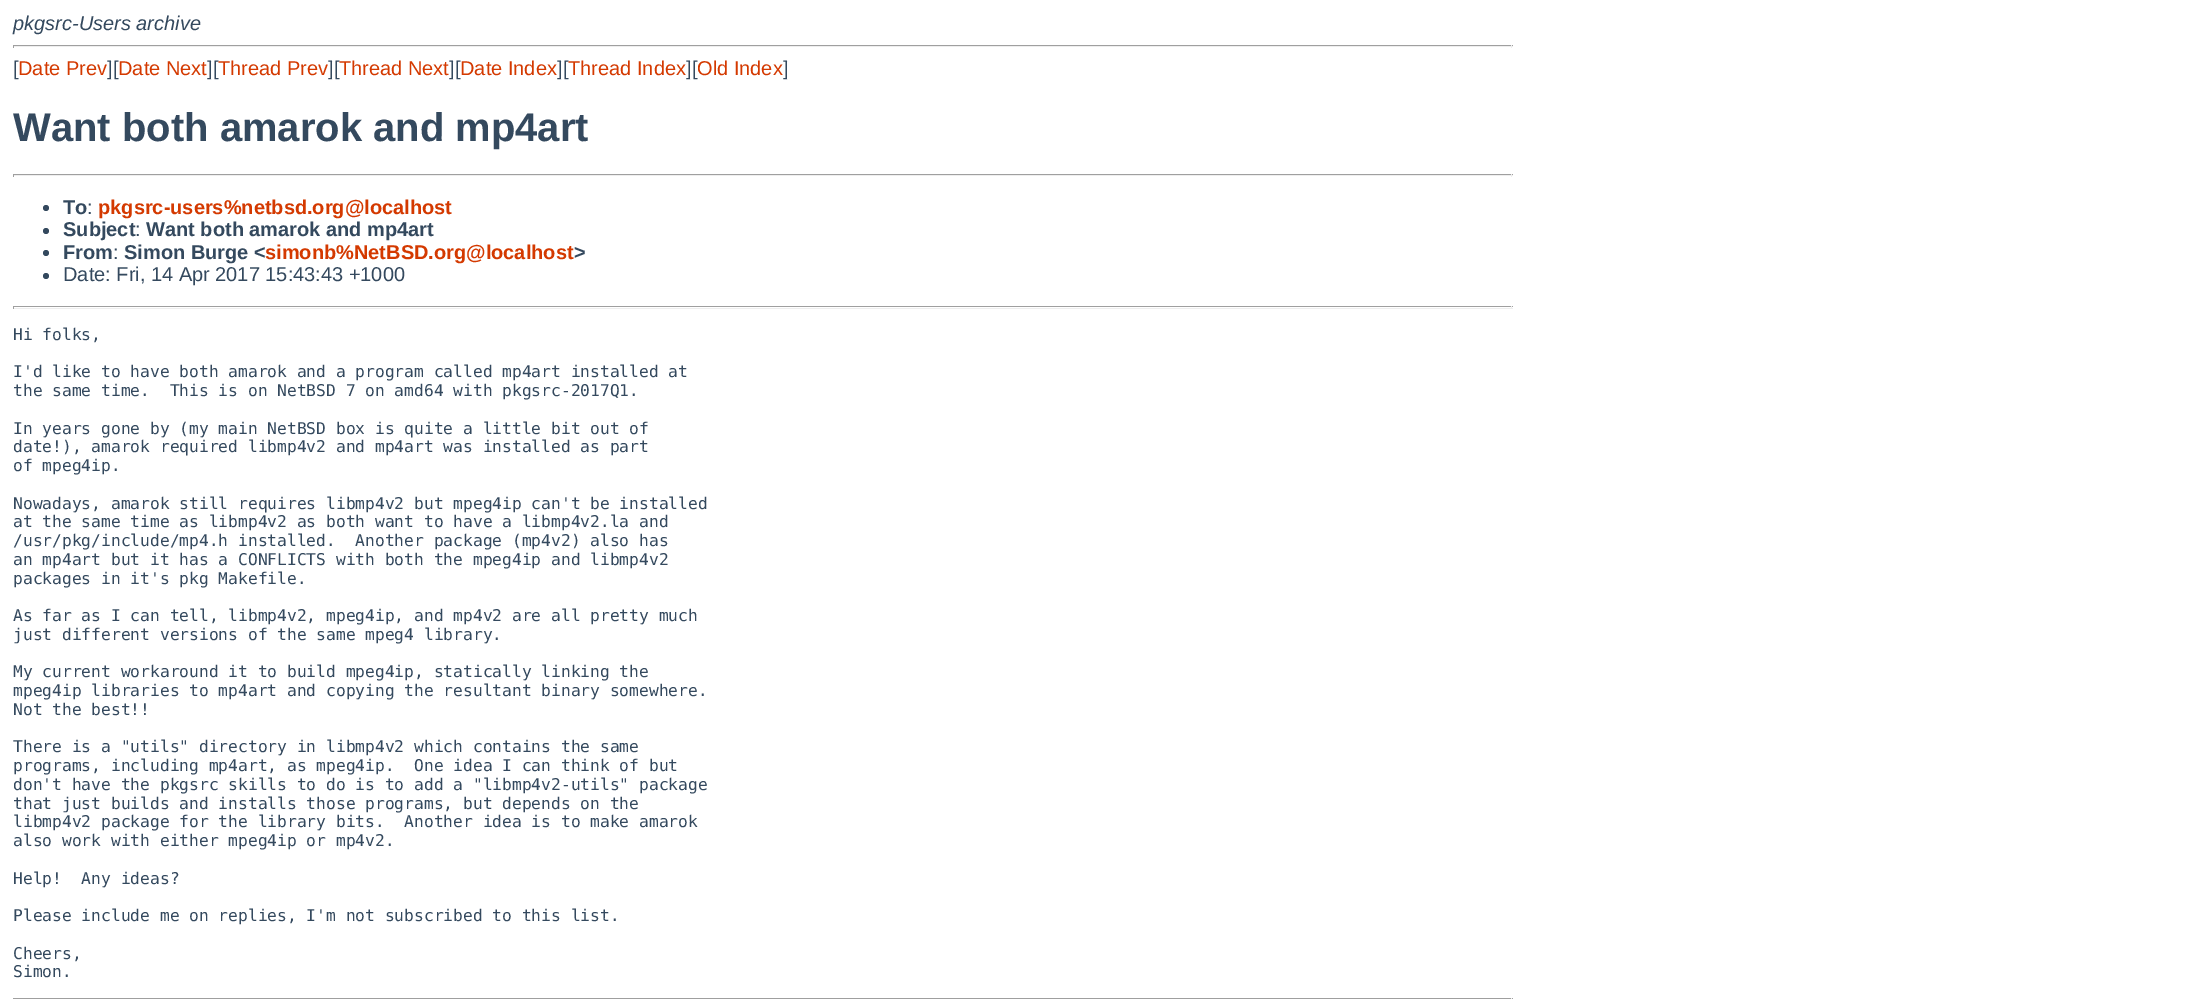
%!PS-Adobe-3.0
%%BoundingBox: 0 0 2186 999
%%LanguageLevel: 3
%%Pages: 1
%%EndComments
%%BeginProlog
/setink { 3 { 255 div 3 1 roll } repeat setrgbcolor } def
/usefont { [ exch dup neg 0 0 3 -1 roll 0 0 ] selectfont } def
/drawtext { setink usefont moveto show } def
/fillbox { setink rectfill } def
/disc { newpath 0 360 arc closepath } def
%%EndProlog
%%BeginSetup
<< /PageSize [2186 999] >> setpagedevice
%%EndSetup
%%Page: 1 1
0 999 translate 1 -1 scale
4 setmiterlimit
0 0 2186 999 255 255 255 fillbox
(pkgsrc-Users archive) 13 30 /LiberationSans-Italic 20 52 73 94 drawtext
13 45 1500 1 159 159 159 fillbox
1511 45 1 3 238 238 238 fillbox
13 46 1500 1 238 238 238 fillbox
13 45 1 3 159 159 159 fillbox
([) 13 75 /LiberationSans-Regular 20 52 73 94 drawtext
(Date Prev) 18 75 /LiberationSans-Regular 20 212 57 0 drawtext
(][) 107 75 /LiberationSans-Regular 20 52 73 94 drawtext
(Date Next) 118 75 /LiberationSans-Regular 20 212 57 0 drawtext
(][) 207 75 /LiberationSans-Regular 20 52 73 94 drawtext
(Thread Prev) 218 75 /LiberationSans-Regular 20 212 57 0 drawtext
(][) 328 75 /LiberationSans-Regular 20 52 73 94 drawtext
(Thread Next) 339 75 /LiberationSans-Regular 20 212 57 0 drawtext
(][) 449 75 /LiberationSans-Regular 20 52 73 94 drawtext
(Date Index) 460 75 /LiberationSans-Regular 20 212 57 0 drawtext
(][) 557 75 /LiberationSans-Regular 20 52 73 94 drawtext
(Thread Index) 568 75 /LiberationSans-Regular 20 212 57 0 drawtext
(][) 686 75 /LiberationSans-Regular 20 52 73 94 drawtext
(Old Index) 697 75 /LiberationSans-Regular 20 212 57 0 drawtext
(]) 783 75 /LiberationSans-Regular 20 52 73 94 drawtext
(Want both amarok and mp4art) 13 141 /LiberationSans-Bold 40 52 73 94 drawtext
13 174 1500 1 159 159 159 fillbox
1511 174 1 3 238 238 238 fillbox
13 175 1500 1 238 238 238 fillbox
13 174 1 3 159 159 159 fillbox
52 73 94 setink
46 208 3 disc fill
(To) 63 214 /LiberationSans-Bold 20 52 73 94 drawtext
(:) 87 214 /LiberationSans-Regular 20 52 73 94 drawtext
(pkgsrc-users%netbsd.org@localhost) 98 214 /LiberationSans-Bold 20 212 57 0 drawtext
52 73 94 setink
46 231 3 disc fill
(Subject) 63 236 /LiberationSans-Bold 20 52 73 94 drawtext
(:) 135 236 /LiberationSans-Regular 20 52 73 94 drawtext
(Want both amarok and mp4art) 146 236 /LiberationSans-Bold 20 52 73 94 drawtext
46 253 3 disc fill
(From) 63 259 /LiberationSans-Bold 20 52 73 94 drawtext
(:) 113 259 /LiberationSans-Regular 20 52 73 94 drawtext
(Simon Burge <) 124 259 /LiberationSans-Bold 20 52 73 94 drawtext
(simonb%NetBSD.org@localhost) 265 259 /LiberationSans-Bold 20 212 57 0 drawtext
(>) 574 259 /LiberationSans-Bold 20 52 73 94 drawtext
46 276 3 disc fill
(Date: Fri, 14 Apr 2017 15:43:43 +1000) 63 281 /LiberationSans-Regular 20 52 73 94 drawtext
13 306 1500 1 159 159 159 fillbox
1511 306 1 3 238 238 238 fillbox
13 308 1500 1 238 238 238 fillbox
13 306 1 3 159 159 159 fillbox
(Hi folks,) 13 340 /DejaVuSansMono-Regular 16.25 52 73 94 drawtext
(I'd like to have both amarok and a program called mp4art installed at) 13 377 /DejaVuSansMono-Regular 16.25 52 73 94 drawtext
(the same time.  This is on NetBSD 7 on amd64 with pkgsrc-2017Q1.) 13 396 /DejaVuSansMono-Regular 16.25 52 73 94 drawtext
(In years gone by \(my main NetBSD box is quite a little bit out of) 13 434 /DejaVuSansMono-Regular 16.25 52 73 94 drawtext
(date!\), amarok required libmp4v2 and mp4art was installed as part) 13 452 /DejaVuSansMono-Regular 16.25 52 73 94 drawtext
(of mpeg4ip.) 13 471 /DejaVuSansMono-Regular 16.25 52 73 94 drawtext
(Nowadays, amarok still requires libmp4v2 but mpeg4ip can't be installed) 13 509 /DejaVuSansMono-Regular 16.25 52 73 94 drawtext
(at the same time as libmp4v2 as both want to have a libmp4v2.la and) 13 527 /DejaVuSansMono-Regular 16.25 52 73 94 drawtext
(/usr/pkg/include/mp4.h installed.  Another package \(mp4v2\) also has) 13 546 /DejaVuSansMono-Regular 16.25 52 73 94 drawtext
(an mp4art but it has a CONFLICTS with both the mpeg4ip and libmp4v2) 13 565 /DejaVuSansMono-Regular 16.25 52 73 94 drawtext
(packages in it's pkg Makefile.) 13 584 /DejaVuSansMono-Regular 16.25 52 73 94 drawtext
(As far as I can tell, libmp4v2, mpeg4ip, and mp4v2 are all pretty much) 13 621 /DejaVuSansMono-Regular 16.25 52 73 94 drawtext
(just different versions of the same mpeg4 library.) 13 640 /DejaVuSansMono-Regular 16.25 52 73 94 drawtext
(My current workaround it to build mpeg4ip, statically linking the) 13 677 /DejaVuSansMono-Regular 16.25 52 73 94 drawtext
(mpeg4ip libraries to mp4art and copying the resultant binary somewhere.) 13 696 /DejaVuSansMono-Regular 16.25 52 73 94 drawtext
(Not the best!!) 13 715 /DejaVuSansMono-Regular 16.25 52 73 94 drawtext
(There is a "utils" directory in libmp4v2 which contains the same) 13 752 /DejaVuSansMono-Regular 16.25 52 73 94 drawtext
(programs, including mp4art, as mpeg4ip.  One idea I can think of but) 13 771 /DejaVuSansMono-Regular 16.25 52 73 94 drawtext
(don't have the pkgsrc skills to do is to add a "libmp4v2-utils" package) 13 790 /DejaVuSansMono-Regular 16.25 52 73 94 drawtext
(that just builds and installs those programs, but depends on the) 13 809 /DejaVuSansMono-Regular 16.25 52 73 94 drawtext
(libmp4v2 package for the library bits.  Another idea is to make amarok) 13 827 /DejaVuSansMono-Regular 16.25 52 73 94 drawtext
(also work with either mpeg4ip or mp4v2.) 13 846 /DejaVuSansMono-Regular 16.25 52 73 94 drawtext
(Help!  Any ideas?) 13 884 /DejaVuSansMono-Regular 16.25 52 73 94 drawtext
(Please include me on replies, I'm not subscribed to this list.) 13 921 /DejaVuSansMono-Regular 16.25 52 73 94 drawtext
(Cheers,) 13 959 /DejaVuSansMono-Regular 16.25 52 73 94 drawtext
(Simon.) 13 977 /DejaVuSansMono-Regular 16.25 52 73 94 drawtext
13 998 1500 1 159 159 159 fillbox
1511 998 1 1 238 238 238 fillbox
showpage
%%EOF
